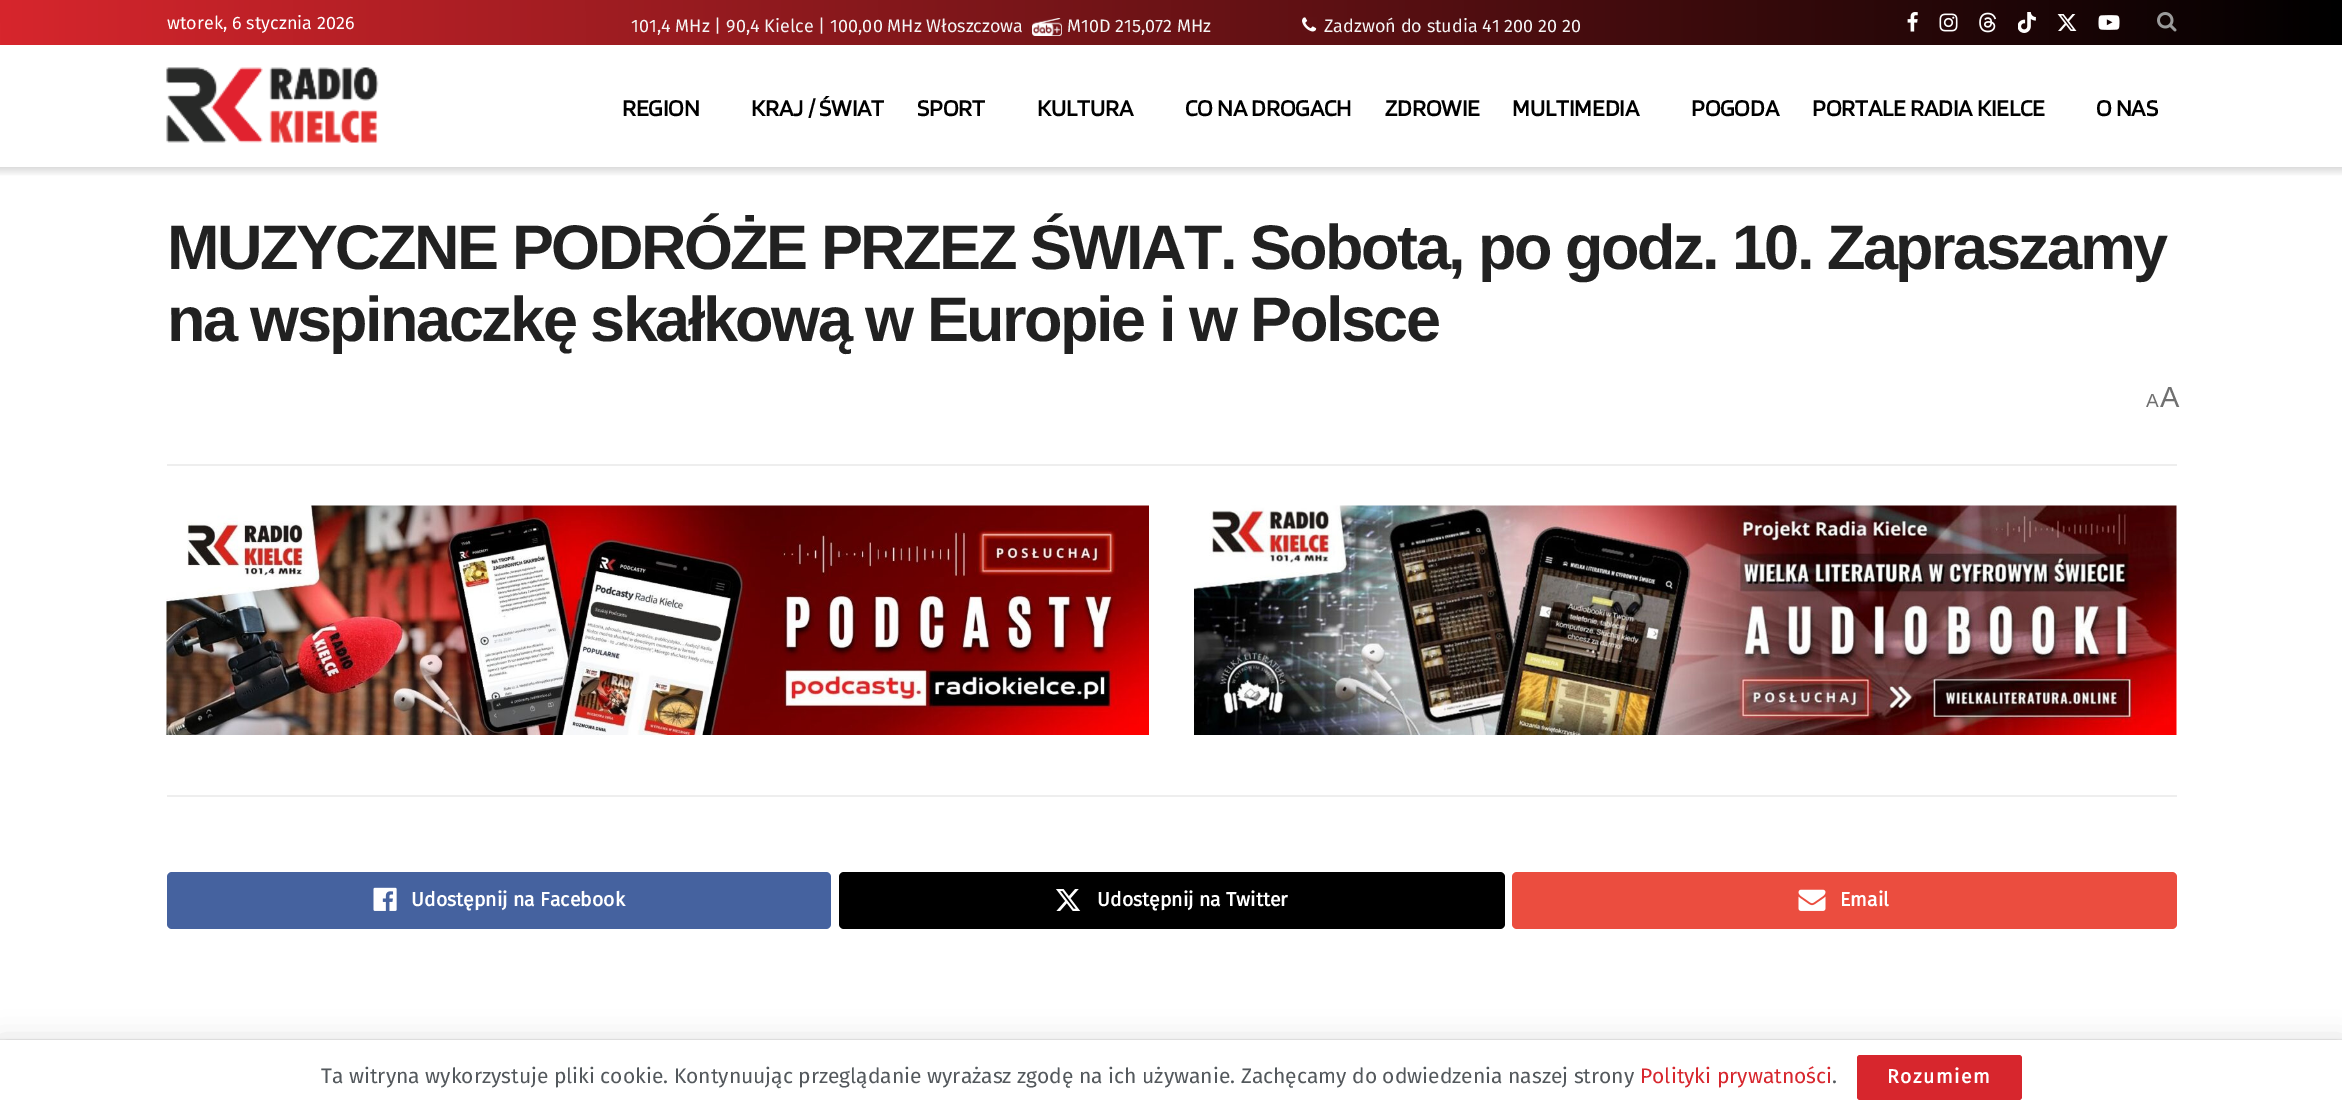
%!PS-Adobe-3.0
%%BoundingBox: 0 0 2342 1114
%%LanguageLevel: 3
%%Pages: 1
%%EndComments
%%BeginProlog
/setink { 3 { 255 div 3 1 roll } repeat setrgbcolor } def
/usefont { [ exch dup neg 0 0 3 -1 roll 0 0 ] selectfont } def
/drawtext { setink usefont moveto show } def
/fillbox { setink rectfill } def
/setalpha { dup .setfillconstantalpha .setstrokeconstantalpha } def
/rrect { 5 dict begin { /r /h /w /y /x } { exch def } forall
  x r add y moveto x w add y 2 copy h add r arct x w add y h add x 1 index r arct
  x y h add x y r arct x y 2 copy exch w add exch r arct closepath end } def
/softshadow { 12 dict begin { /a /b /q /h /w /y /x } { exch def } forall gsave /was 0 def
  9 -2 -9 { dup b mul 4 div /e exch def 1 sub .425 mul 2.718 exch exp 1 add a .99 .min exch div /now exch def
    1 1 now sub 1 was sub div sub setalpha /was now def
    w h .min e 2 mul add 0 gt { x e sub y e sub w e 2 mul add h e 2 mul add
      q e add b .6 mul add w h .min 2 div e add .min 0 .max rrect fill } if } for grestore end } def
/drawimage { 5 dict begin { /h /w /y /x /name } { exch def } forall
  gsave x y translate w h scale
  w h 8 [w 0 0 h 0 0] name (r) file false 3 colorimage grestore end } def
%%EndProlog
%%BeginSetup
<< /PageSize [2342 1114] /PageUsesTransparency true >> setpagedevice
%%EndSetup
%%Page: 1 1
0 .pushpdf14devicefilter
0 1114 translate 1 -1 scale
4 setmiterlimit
0 0 2342 1114 255 255 255 fillbox
gsave 0 0 moveto 2342 0 lineto 2342 45 lineto 0 45 lineto closepath clip newpath
<< /ShadingType 2 /ColorSpace /DeviceRGB /Coords [0 23 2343 22] /Extend [true true] /Function << /FunctionType 2 /Domain [0 1] /C0 [0.843 0.149 0.176] /C1 [0 0 0] /N 1 >> >> shfill grestore
(wtorek, 6 stycznia 2026) 167 29 /FiraSans-Regular 18 255 255 255 drawtext
(101,4 MHz | 90,4 Kielce | 100,00 MHz Włoszczowa) 631 32 /FiraSans-Regular 18 245 245 245 drawtext
(assets/img1.rgb) 1032 18 30 18 drawimage
(M10D 215,072 MHz) 1067 32 /FiraSans-Regular 18 245 245 245 drawtext
(assets/img2.rgb) 1302 17 15 15 drawimage
(Zadzwoń do studia 41 200 20 20) 1324 32 /FiraSans-Regular 18 245 245 245 drawtext
(assets/img3.rgb) 1907 12 11 20 drawimage
(assets/img4.rgb) 1939 13 19 19 drawimage
(assets/img5.rgb) 1979 12 17 21 drawimage
(assets/img6.rgb) 2018 12 18 21 drawimage
(assets/img7.rgb) 2057 14 20 17 drawimage
(assets/img8.rgb) 2098 15 22 15 drawimage
(assets/img9.rgb) 2157 12 20 20 drawimage
(assets/img10.rgb) 166 67 213 76 drawimage
(REGION) 622 116 /Blinker-Bold 24 0 0 0 drawtext
(KRAJ / ŚWIAT) 751 116 /Blinker-Bold 24 0 0 0 drawtext
(SPORT) 917 116 /Blinker-Bold 24 0 0 0 drawtext
(KULTURA) 1037 116 /Blinker-Bold 24 0 0 0 drawtext
(CO NA DROGACH) 1185 116 /Blinker-Bold 24 0 0 0 drawtext
(ZDROWIE) 1385 116 /Blinker-Bold 24 0 0 0 drawtext
(MULTIMEDIA) 1512 116 /Blinker-Bold 24 0 0 0 drawtext
(POGODA) 1691 116 /Blinker-Bold 24 0 0 0 drawtext
(PORTALE RADIA KIELCE) 1812 116 /Blinker-Bold 24 0 0 0 drawtext
(O NAS) 2096 116 /Blinker-Bold 24 0 0 0 drawtext
gsave 0 167 moveto 2342 167 lineto 2342 176 lineto 0 176 lineto closepath clip newpath
<< /ShadingType 2 /ColorSpace /DeviceRGB /Coords [1172 166 1172 177] /Extend [true true] /Function << /FunctionType 2 /Domain [0 1] /C0 [0.851 0.851 0.851] /C1 [1 1 1] /N 1 >> >> shfill grestore
/LiberationSans-Bold 63 usefont
33 33 33 setink
167 269 moveto -2.52 0 (MUZYCZNE PODRÓŻE PRZEZ ŚWIAT. Sobota, po godz. 10. Zapraszamy) ashow
167 341 moveto -2.52 0 (na wspinaczkę skałkową w Europie i w Polsce) ashow
(A) 2146 407 /LiberationSans-Regular 19 112 112 112 drawtext
(A) 2160 407 /LiberationSans-Regular 29 112 112 112 drawtext
167 464 2010 2 238 238 238 fillbox
(assets/img11.rgb) 166 505 983 230 drawimage
(assets/img12.rgb) 1194 505 983 230 drawimage
167 795 2010 2 238 238 238 fillbox
69 98 159 setink
167 872 664 57 5 rrect fill
(assets/img13.rgb) 373 887 24 24 drawimage
(Udostępnij na Facebook) 411 906 /FiraSans-Bold 19.5 255 255 255 drawtext
0 0 0 setink
839 872 666 57 5 rrect fill
(assets/img14.rgb) 1056 889 25 22 drawimage
(Udostępnij na Twitter) 1097 906 /FiraSans-Bold 19.5 255 255 255 drawtext
235 77 63 setink
1512 872 665 57 5 rrect fill
(assets/img15.rgb) 1798 889 28 22 drawimage
(Email) 1840 906 /FiraSans-Bold 19.5 255 255 255 drawtext
0 0 0 setink
0 1043 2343 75 0 15 0.15 softshadow
0 1040 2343 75 0 1 0.2 softshadow
0 1040 2342 74 255 255 255 fillbox
(Ta witryna wykorzystuje pliki cookie. Kontynuując przeglądanie wyrażasz zgodę na ich używanie. Zachęcamy do odwiedzenia naszej strony) 321 1083 /FiraSans-Regular 21 83 88 92 drawtext
(Polityki prywatności) 1640 1083 /FiraSans-Regular 21 215 38 45 drawtext
(.) 1832 1083 /FiraSans-Regular 21 83 88 92 drawtext
215 38 45 setink
1857 1055 165 45 3 rrect fill
/FiraSans-Bold 19.5 usefont
255 255 255 setink
1887 1083 moveto 1.5 0 (Rozumiem) ashow
.poppdf14devicefilter showpage
%%EOF
